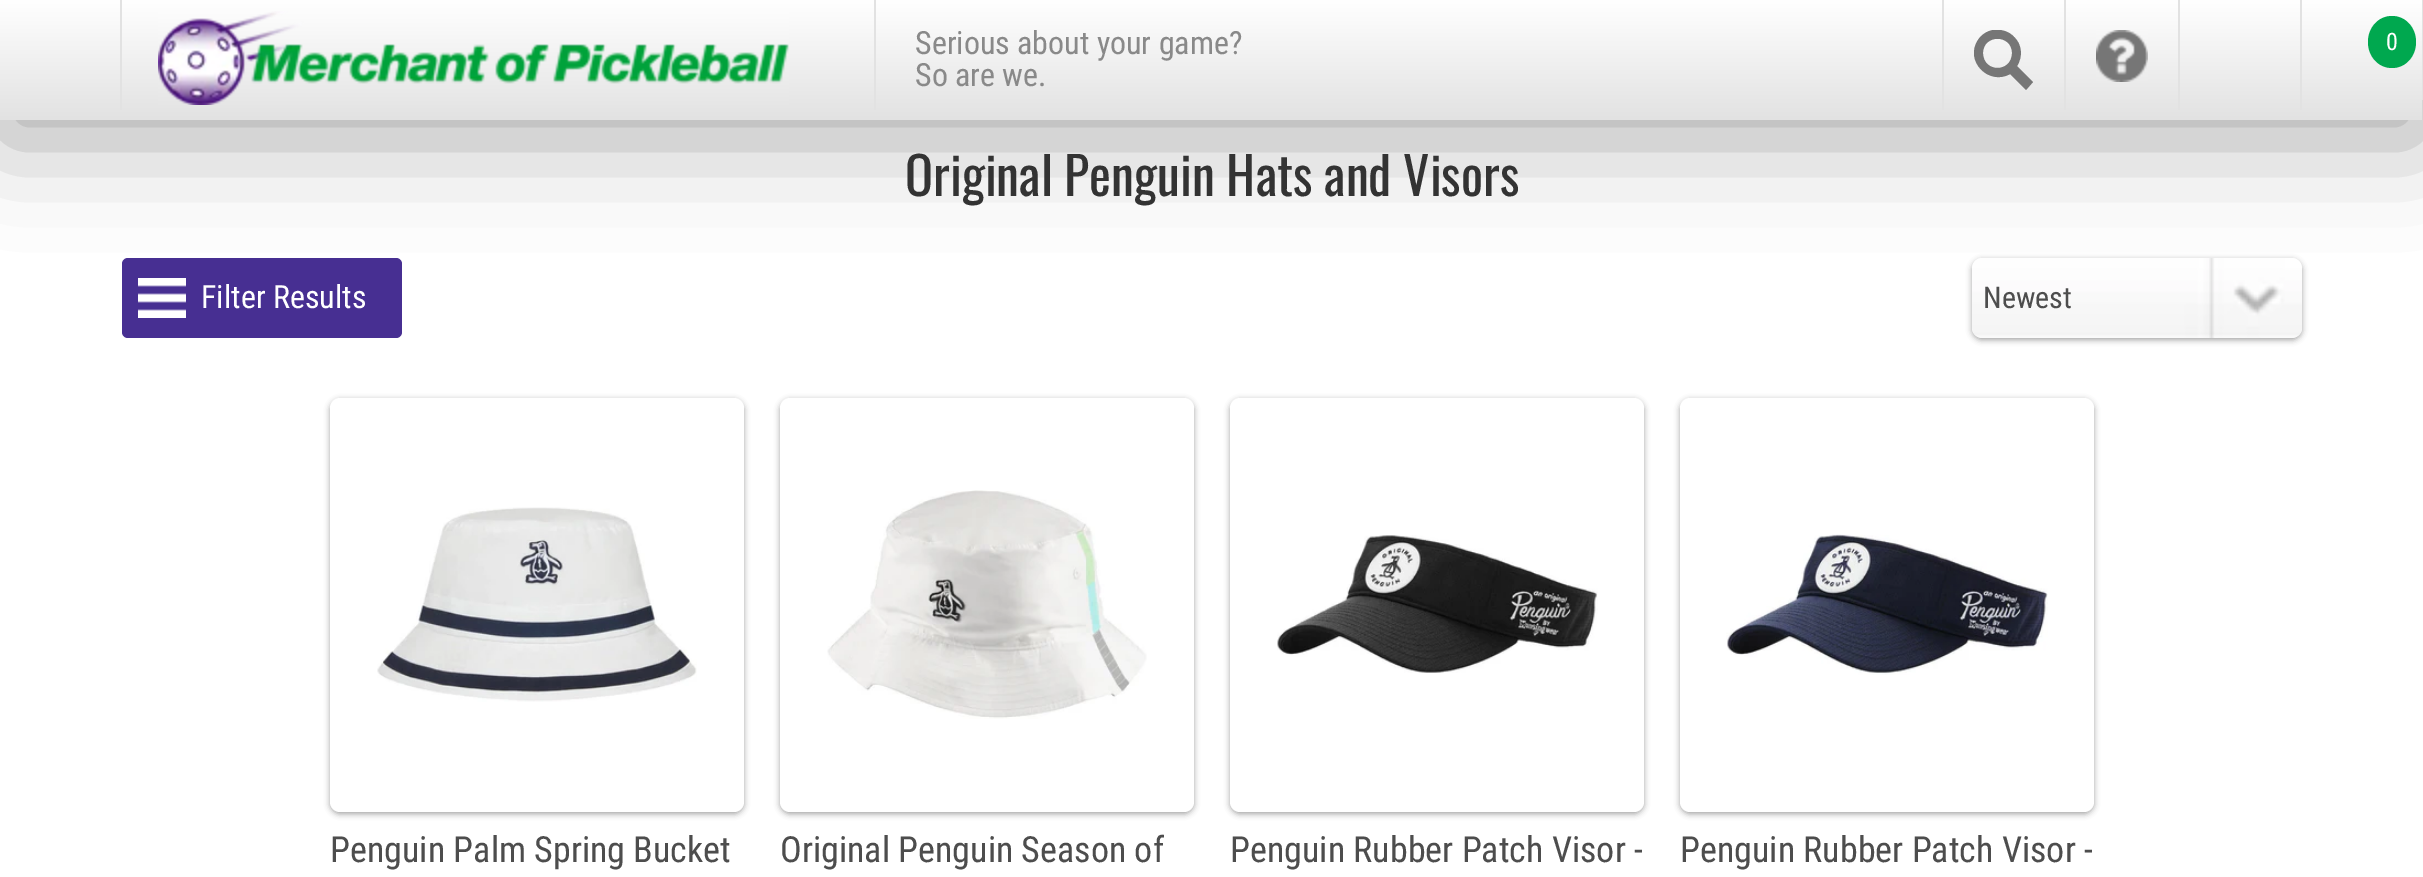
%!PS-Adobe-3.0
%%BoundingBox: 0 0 2423 877
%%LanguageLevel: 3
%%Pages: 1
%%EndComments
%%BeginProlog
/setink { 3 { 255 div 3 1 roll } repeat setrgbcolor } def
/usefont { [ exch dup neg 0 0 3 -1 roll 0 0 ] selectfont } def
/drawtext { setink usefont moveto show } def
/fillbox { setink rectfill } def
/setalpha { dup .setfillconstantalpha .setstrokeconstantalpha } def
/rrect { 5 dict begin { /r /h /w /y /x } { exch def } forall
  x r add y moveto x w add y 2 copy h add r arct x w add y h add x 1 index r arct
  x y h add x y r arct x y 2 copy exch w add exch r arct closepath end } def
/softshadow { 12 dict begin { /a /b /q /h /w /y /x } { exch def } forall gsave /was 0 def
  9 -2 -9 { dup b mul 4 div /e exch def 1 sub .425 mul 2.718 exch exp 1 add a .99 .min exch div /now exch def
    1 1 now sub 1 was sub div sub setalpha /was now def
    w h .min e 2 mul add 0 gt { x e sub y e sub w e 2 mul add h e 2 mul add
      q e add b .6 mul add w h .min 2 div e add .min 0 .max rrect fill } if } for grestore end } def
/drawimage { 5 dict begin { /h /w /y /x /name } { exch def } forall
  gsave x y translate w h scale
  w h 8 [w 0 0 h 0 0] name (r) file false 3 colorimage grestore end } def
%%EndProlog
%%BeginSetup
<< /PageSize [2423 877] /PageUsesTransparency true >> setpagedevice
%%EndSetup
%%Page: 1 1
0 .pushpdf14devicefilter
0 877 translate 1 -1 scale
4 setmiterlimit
0 0 2423 877 255 255 255 fillbox
71 47 146 setink
122 258 280 80 6 rrect fill
(assets/img3.rgb) 138 278 48 40 drawimage
0 0 0 setink
1972 260 330 80 10 3 0.36 softshadow
(assets/img4.rgb) 1972 258 330 80 drawimage
0 20 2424 120 0 50 0.33 softshadow
gsave 0 0 moveto 2422 0 lineto 2422 120 lineto 0 120 lineto closepath clip newpath
<< /ShadingType 2 /ColorSpace /DeviceRGB /Coords [1212 0 1212 120] /Extend [true true] /Function << /FunctionType 2 /Domain [0 1] /C0 [1 1 1] /C1 [0.886 0.886 0.886] /N 1 >> >> shfill grestore
120 0 2 110 226 226 226 fillbox
(assets/img1.rgb) 158 11 631 94 drawimage
874 0 2 110 226 226 226 fillbox
(Serious about your game?) 915 54 /RobotoCondensed-Regular 32 137 137 137 drawtext
(So are we.) 915 86 /RobotoCondensed-Regular 32 137 137 137 drawtext
1942 0 2 110 226 226 226 fillbox
2064 0 2 110 226 226 226 fillbox
gsave
1974 30 60 60 rectclip
118 118 118 setink
2033 82 moveto 2017 66 lineto 2023 57 2022 44 2014 37 curveto 2009 31 2000 29 1993 30 curveto 1987 31 1981 35 1978 40 curveto 1964 61 1989 86 2010 74 curveto 2026 90 lineto closepath 1983 53 moveto 1983 34 2012 34 2012 53 curveto 2012 73 1983 73 1983 53 curveto closepath fill
grestore
2178 0 2 110 226 226 226 fillbox
(assets/img2.rgb) 2096 30 52 52 drawimage
2300 0 2 110 226 226 226 fillbox
2422 0 1 100 226 226 226 fillbox
0 168 79 setink
2392 16 moveto 2405.5 16 2416 27.5 2416 42 curveto 2416 56.5 2405.5 68 2392 68 curveto 2378.5 68 2368 56.5 2368 42 curveto 2368 27.5 2378.5 16 2392 16 curveto closepath fill
(0) 2386 50 /RobotoCondensed-Regular 24 255 255 255 drawtext
(Original Penguin Hats and Visors) 905 196 /Oswald-Regular 52 51 51 51 drawtext
(Filter Results) 201 308 /RobotoCondensed-Regular 32 255 255 255 drawtext
(Newest) 1983 308 /RobotoCondensed-Regular 30 77 77 77 drawtext
0 0 0 setink
330 400 414 414 10 3 0.36 softshadow
255 255 255 setink
330 398 414 414 10 rrect fill
(assets/img5.rgb) 377 507 320 195 drawimage
(Penguin Palm Spring Bucket) 330 862 /RobotoCondensed-Regular 36 77 77 77 drawtext
0 0 0 setink
780 400 414 414 10 3 0.36 softshadow
255 255 255 setink
780 398 414 414 10 rrect fill
(assets/img6.rgb) 827 490 320 229 drawimage
(Original Penguin Season of) 780 862 /RobotoCondensed-Regular 36 77 77 77 drawtext
0 0 0 setink
1230 400 414 414 10 3 0.36 softshadow
255 255 255 setink
1230 398 414 414 10 rrect fill
(assets/img7.rgb) 1277 535 321 138 drawimage
(Penguin Rubber Patch Visor -) 1230 862 /RobotoCondensed-Regular 36 77 77 77 drawtext
0 0 0 setink
1680 400 414 414 10 3 0.36 softshadow
255 255 255 setink
1680 398 414 414 10 rrect fill
(assets/img8.rgb) 1726 534 322 141 drawimage
(Penguin Rubber Patch Visor -) 1680 862 /RobotoCondensed-Regular 36 77 77 77 drawtext
.poppdf14devicefilter showpage
%%EOF
